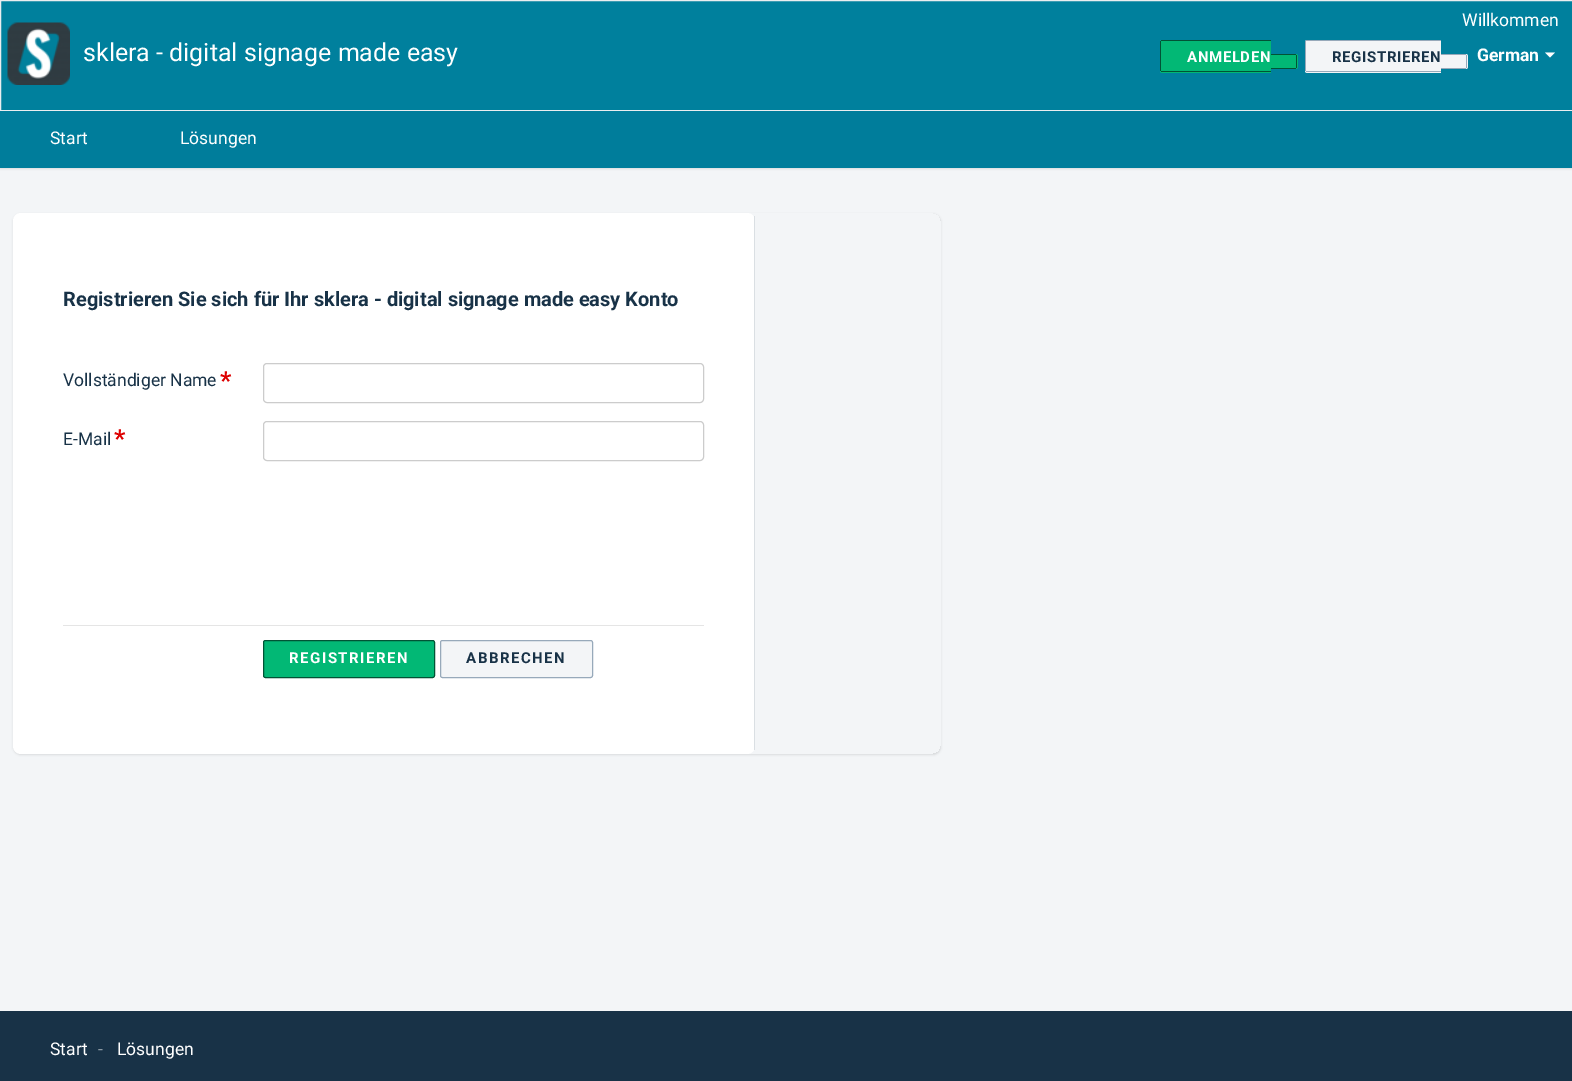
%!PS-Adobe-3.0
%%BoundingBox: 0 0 1572 1081
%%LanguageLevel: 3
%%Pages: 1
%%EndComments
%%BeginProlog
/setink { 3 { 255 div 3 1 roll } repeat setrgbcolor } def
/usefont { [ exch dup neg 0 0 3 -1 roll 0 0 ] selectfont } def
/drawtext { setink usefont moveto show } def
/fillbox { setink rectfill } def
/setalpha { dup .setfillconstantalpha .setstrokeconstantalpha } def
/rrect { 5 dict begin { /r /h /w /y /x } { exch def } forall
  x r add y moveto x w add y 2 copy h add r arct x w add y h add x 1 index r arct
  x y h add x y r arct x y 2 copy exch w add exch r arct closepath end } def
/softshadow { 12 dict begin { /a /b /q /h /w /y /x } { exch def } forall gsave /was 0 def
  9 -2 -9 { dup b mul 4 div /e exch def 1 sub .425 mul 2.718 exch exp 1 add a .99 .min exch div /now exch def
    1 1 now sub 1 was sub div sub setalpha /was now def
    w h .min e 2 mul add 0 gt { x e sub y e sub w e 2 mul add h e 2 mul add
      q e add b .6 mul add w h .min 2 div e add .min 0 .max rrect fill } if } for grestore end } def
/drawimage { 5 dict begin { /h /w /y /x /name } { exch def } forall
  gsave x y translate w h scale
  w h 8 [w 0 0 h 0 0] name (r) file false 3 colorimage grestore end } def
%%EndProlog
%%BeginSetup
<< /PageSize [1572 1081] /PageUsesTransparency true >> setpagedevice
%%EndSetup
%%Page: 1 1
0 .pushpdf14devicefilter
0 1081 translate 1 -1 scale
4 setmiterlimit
0 0 1572 1081 243 245 247 fillbox
0 128 157 setink
0.5 0.5 moveto 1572.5 0.5 lineto 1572.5 110.5 lineto 0.5 110.5 lineto closepath gsave fill grestore
235 238 240 setink
stroke
(assets/img1.rgb) 7 22 63 63 drawimage
(sklera - digital signage made easy) 83 61 /Roboto-Regular 25 255 255 255 drawtext
(Willkommen) 1462 26 /Roboto-Regular 17.5 255 255 255 drawtext
2 184 117 setink
1162.5 40 moveto 1271 40 lineto 1271 73 lineto 1162.5 73 lineto 1161 73 1160 72 1160 70.5 curveto 1160 42.5 lineto 1160 41 1161 40 1162.5 40 curveto closepath fill
/Roboto-Bold 15 usefont
255 255 255 setink
1187 62 moveto 0.6 0 (ANMELDEN) ashow
1161 40 110 1 1 83 53 fillbox
1161 71 110 1 1 83 53 fillbox
1160 41 1 30 1 83 53 fillbox
2 184 117 setink
1271 54 moveto 1295.5 54 lineto 1297 54 1298 55 1298 56.5 curveto 1298 66.5 lineto 1298 68 1297 69 1295.5 69 curveto 1271 69 lineto closepath fill
1271 54 25 1 1 83 53 fillbox
1296 55 1 13 1 83 53 fillbox
1271 68 25 1 1 83 53 fillbox
243 245 247 setink
1307.5 40 moveto 1441 40 lineto 1441 73 lineto 1307.5 73 lineto 1306 73 1305 72 1305 70.5 curveto 1305 42.5 lineto 1305 41 1306 40 1307.5 40 curveto closepath fill
24 50 71 setink
1332 62 moveto 0.6 0 (REGISTRIEREN) ashow
1306 40 135 1 151 169 186 fillbox
1306 71 135 1 151 169 186 fillbox
1305 41 1 30 151 169 186 fillbox
243 245 247 setink
1441 54 moveto 1465.5 54 lineto 1467 54 1468 55 1468 56.5 curveto 1468 66.5 lineto 1468 68 1467 69 1465.5 69 curveto 1441 69 lineto closepath fill
1441 54 25 1 151 169 186 fillbox
1466 55 1 13 151 169 186 fillbox
1441 68 25 1 151 169 186 fillbox
(German) 1477 61 /Roboto-Bold 17.5 255 255 255 drawtext
1545 52.5 moveto 1555 52.5 lineto 1550 57.5 lineto closepath fill
63 63 68 setink
0 113 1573 56 0 1 0.15 softshadow
0 111 1572 57 0 125 155 fillbox
(Start) 50 144 /Roboto-Regular 17.5 255 255 255 drawtext
(Lösungen) 180 144 /Roboto-Regular 17.5 255 255 255 drawtext
gsave
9 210 moveto 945 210 lineto 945 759 lineto 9 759 lineto closepath 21 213 moveto 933 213 lineto 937.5 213 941 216.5 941 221 curveto 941 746 lineto 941 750.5 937.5 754 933 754 curveto 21 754 lineto 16.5 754 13 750.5 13 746 curveto 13 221 lineto 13 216.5 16.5 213 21 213 curveto closepath eoclip newpath
63 63 68 setink
13 214 928 541 8 1 0.15 softshadow
grestore
13 213 742 541 8 rrect fill
754 216 1 534 218 223 227 fillbox
(Registrieren Sie sich für Ihr sklera - digital signage made easy Konto) 63 306 /Roboto-Bold 20 24 50 71 drawtext
(Vollständiger Name) 63 386 /Roboto-Regular 17.5 24 50 71 drawtext
(*) 220 389 /Roboto-Bold 25 221 0 0 drawtext
204 204 204 setink
263.5 363.5 440 39 3.5 rrect stroke
(E-Mail) 63 445 /Roboto-Regular 17.5 24 50 71 drawtext
(*) 114 447 /Roboto-Bold 25 221 0 0 drawtext
204 204 204 setink
263.5 421.5 440 39 3.5 rrect stroke
63 625 641 1 229 229 229 fillbox
2 184 117 setink
263.5 640.5 171 37 2 rrect gsave fill grestore
1 83 53 setink
stroke
/Roboto-Bold 15 usefont
255 255 255 setink
289 663 moveto 1.5 0 (REGISTRIEREN) ashow
243 245 247 setink
440.5 640.5 152 37 2 rrect gsave fill grestore
151 169 186 setink
stroke
24 50 71 setink
466 663 moveto 1.5 0 (ABBRECHEN) ashow
0 1011 1572 70 24 50 71 fillbox
(Start) 50 1055 /Roboto-Regular 17.5 255 255 255 drawtext
(-) 98 1055 /Roboto-Regular 17.5 140 153 163 drawtext
(Lösungen) 117 1055 /Roboto-Regular 17.5 255 255 255 drawtext
.poppdf14devicefilter showpage
%%EOF
